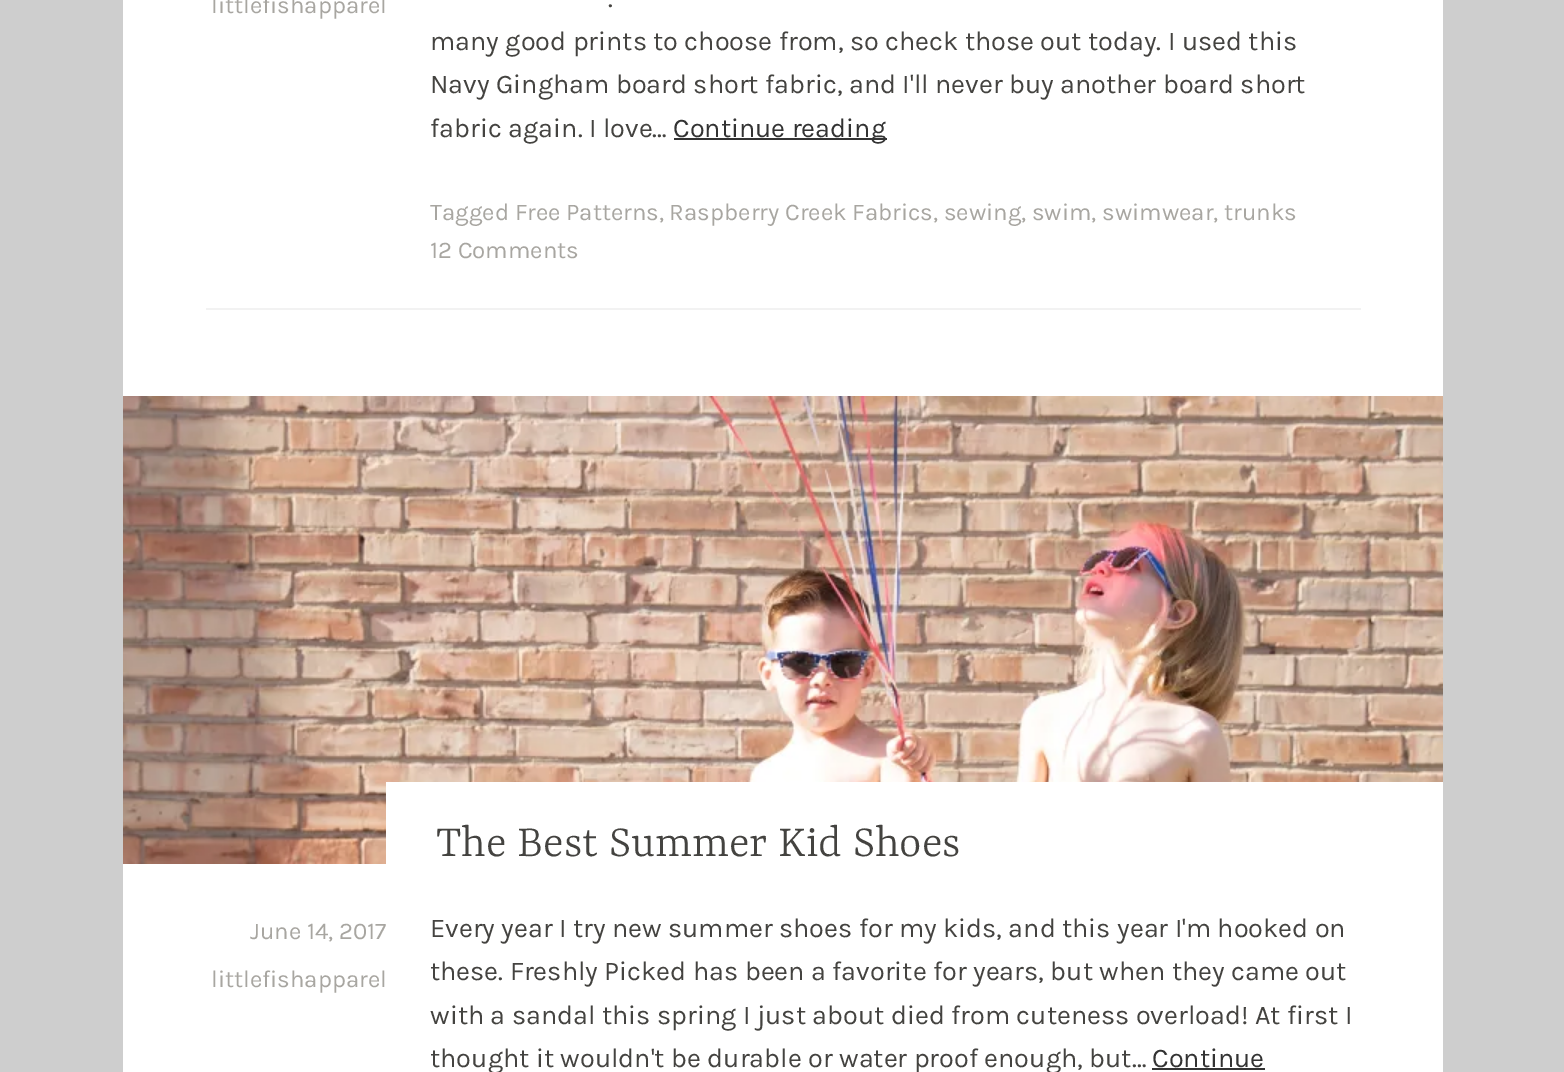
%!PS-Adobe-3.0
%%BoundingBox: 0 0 1564 1072
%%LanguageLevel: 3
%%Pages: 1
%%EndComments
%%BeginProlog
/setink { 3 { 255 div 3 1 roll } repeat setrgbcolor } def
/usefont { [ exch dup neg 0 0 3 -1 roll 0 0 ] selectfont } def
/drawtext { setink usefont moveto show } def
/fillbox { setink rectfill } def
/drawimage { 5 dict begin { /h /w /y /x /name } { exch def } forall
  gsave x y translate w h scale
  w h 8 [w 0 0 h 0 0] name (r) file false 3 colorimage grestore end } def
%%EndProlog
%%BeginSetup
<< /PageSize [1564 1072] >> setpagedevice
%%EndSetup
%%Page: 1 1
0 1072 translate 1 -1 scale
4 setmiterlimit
0 0 1564 1072 206 206 206 fillbox
123 0 1320 1072 255 255 255 fillbox
(littlefishapparel) 211 13 /Karla-Regular 24 168 166 161 drawtext
(.) 608 7 /Karla-Regular 27 68 67 64 drawtext
(many good prints to choose from, so check those out today. I used this) 430 50 /Karla-Regular 27 68 67 64 drawtext
(Navy Gingham board short fabric, and I'll never buy another board short) 430 93 /Karla-Regular 27 68 67 64 drawtext
(fabric again. I love…) 430 137 /Karla-Regular 27 68 67 64 drawtext
674 138 213 2 51 51 51 fillbox
(Continue reading) 673 137 /Karla-Regular 27 51 51 51 drawtext
(Tagged Free Patterns, Raspberry Creek Fabrics, sewing, swim, swimwear, trunks) 430 220 /Karla-Regular 24 168 166 161 drawtext
(12 Comments) 430 258 /Karla-Regular 24 168 166 161 drawtext
206 308 1155 2 242 242 242 fillbox
(assets/img1.rgb) 123 396 1320 468 drawimage
386 782 1057 82 255 255 255 fillbox
(The Best Summer Kid Shoes) 436 856 /Yrsa-Light 48 68 67 64 drawtext
(June 14, 2017) 250 939 /Karla-Regular 24 168 166 161 drawtext
(littlefishapparel) 211 987 /Karla-Regular 24 168 166 161 drawtext
(Every year I try new summer shoes for my kids, and this year I'm hooked on) 430 937 /Karla-Regular 27 68 67 64 drawtext
(these. Freshly Picked has been a favorite for years, but when they came out) 430 980 /Karla-Regular 27 68 67 64 drawtext
(with a sandal this spring I just about died from cuteness overload! At first I) 430 1024 /Karla-Regular 27 68 67 64 drawtext
(thought it wouldn't be durable or water proof enough, but…) 430 1067 /Karla-Regular 27 68 67 64 drawtext
(Continue) 1152 1067 /Karla-Regular 27 51 51 51 drawtext
1152 1068 113 2 51 51 51 fillbox
showpage
%%EOF
